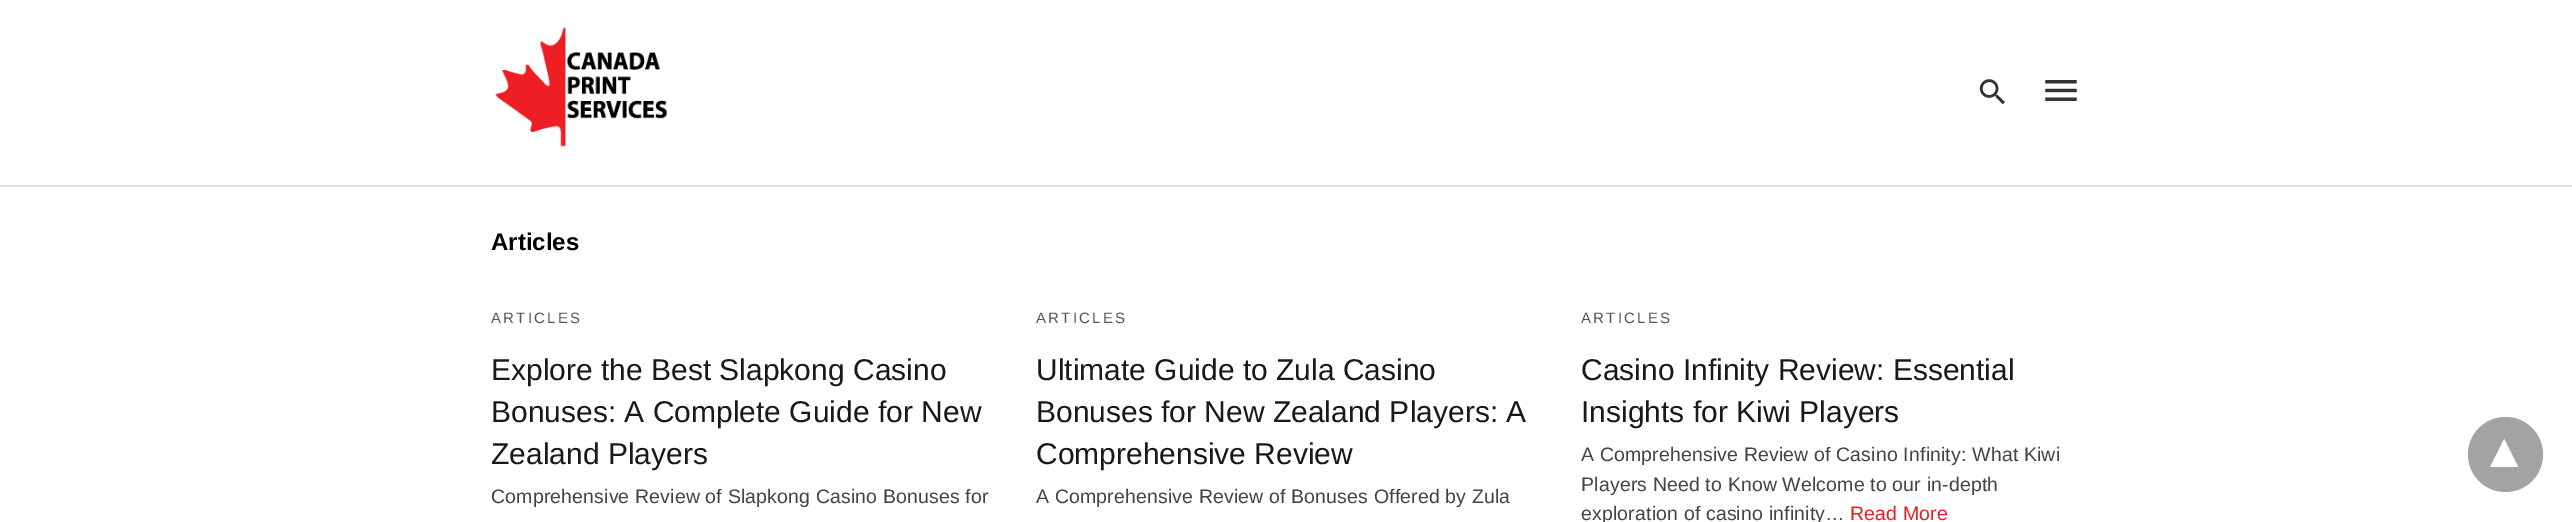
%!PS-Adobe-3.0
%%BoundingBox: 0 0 2572 522
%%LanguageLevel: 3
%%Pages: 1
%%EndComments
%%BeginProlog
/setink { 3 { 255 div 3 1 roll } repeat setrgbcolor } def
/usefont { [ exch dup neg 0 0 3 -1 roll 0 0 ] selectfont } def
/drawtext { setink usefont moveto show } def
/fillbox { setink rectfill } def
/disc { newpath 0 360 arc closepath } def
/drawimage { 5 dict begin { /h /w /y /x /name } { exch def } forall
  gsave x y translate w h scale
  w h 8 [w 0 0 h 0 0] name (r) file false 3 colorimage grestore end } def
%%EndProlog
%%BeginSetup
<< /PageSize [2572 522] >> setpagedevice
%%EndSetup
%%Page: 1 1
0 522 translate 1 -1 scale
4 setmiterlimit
0 0 2572 522 255 255 255 fillbox
0 185 2572 2 224 224 224 fillbox
(assets/img1.rgb) 495 27 173 120 drawimage
(assets/img2.rgb) 1979 79 26 26 drawimage
(assets/img3.rgb) 2045 80 32 21 drawimage
(Articles) 491 250 /LiberationSans-Bold 24 0 0 0 drawtext
/LiberationSans-Regular 15 usefont
85 85 85 setink
491 323 moveto 2.25 0 (ARTICLES) ashow
(Explore the Best Slapkong Casino) 491 380 /LiberationSans-Regular 30 25 25 25 drawtext
(Bonuses: A Complete Guide for New) 491 422 /LiberationSans-Regular 30 25 25 25 drawtext
(Zealand Players) 491 464 /LiberationSans-Regular 30 25 25 25 drawtext
/LiberationSans-Regular 19.5 usefont
68 68 68 setink
491 503 moveto 0.15 0 (Comprehensive Review of Slapkong Casino Bonuses for) ashow
/LiberationSans-Regular 15 usefont
85 85 85 setink
1036 323 moveto 2.25 0 (ARTICLES) ashow
(Ultimate Guide to Zula Casino) 1036 380 /LiberationSans-Regular 30 25 25 25 drawtext
(Bonuses for New Zealand Players: A) 1036 422 /LiberationSans-Regular 30 25 25 25 drawtext
(Comprehensive Review) 1036 464 /LiberationSans-Regular 30 25 25 25 drawtext
/LiberationSans-Regular 19.5 usefont
68 68 68 setink
1036 503 moveto 0.15 0 (A Comprehensive Review of Bonuses Offered by Zula) ashow
/LiberationSans-Regular 15 usefont
85 85 85 setink
1581 323 moveto 2.25 0 (ARTICLES) ashow
(Casino Infinity Review: Essential) 1581 380 /LiberationSans-Regular 30 25 25 25 drawtext
(Insights for Kiwi Players) 1581 422 /LiberationSans-Regular 30 25 25 25 drawtext
/LiberationSans-Regular 19.5 usefont
68 68 68 setink
1581 461 moveto 0.15 0 (A Comprehensive Review of Casino Infinity: What Kiwi) ashow
1581 491 moveto 0.15 0 (Players Need to Know Welcome to our in-depth) ashow
1581 520 moveto 0.15 0 (exploration of casino infinity…) ashow
236 30 36 setink
1850 520 moveto 0.15 0 (Read More) ashow
163 163 163 setink
2505.5 454.5 37.5 disc fill
/DejaVuSans-Bold 52 usefont
255 255 255 setink
gsave 2518 439 translate 180 rotate 0 0 moveto (▾) show grestore
showpage
%%EOF
